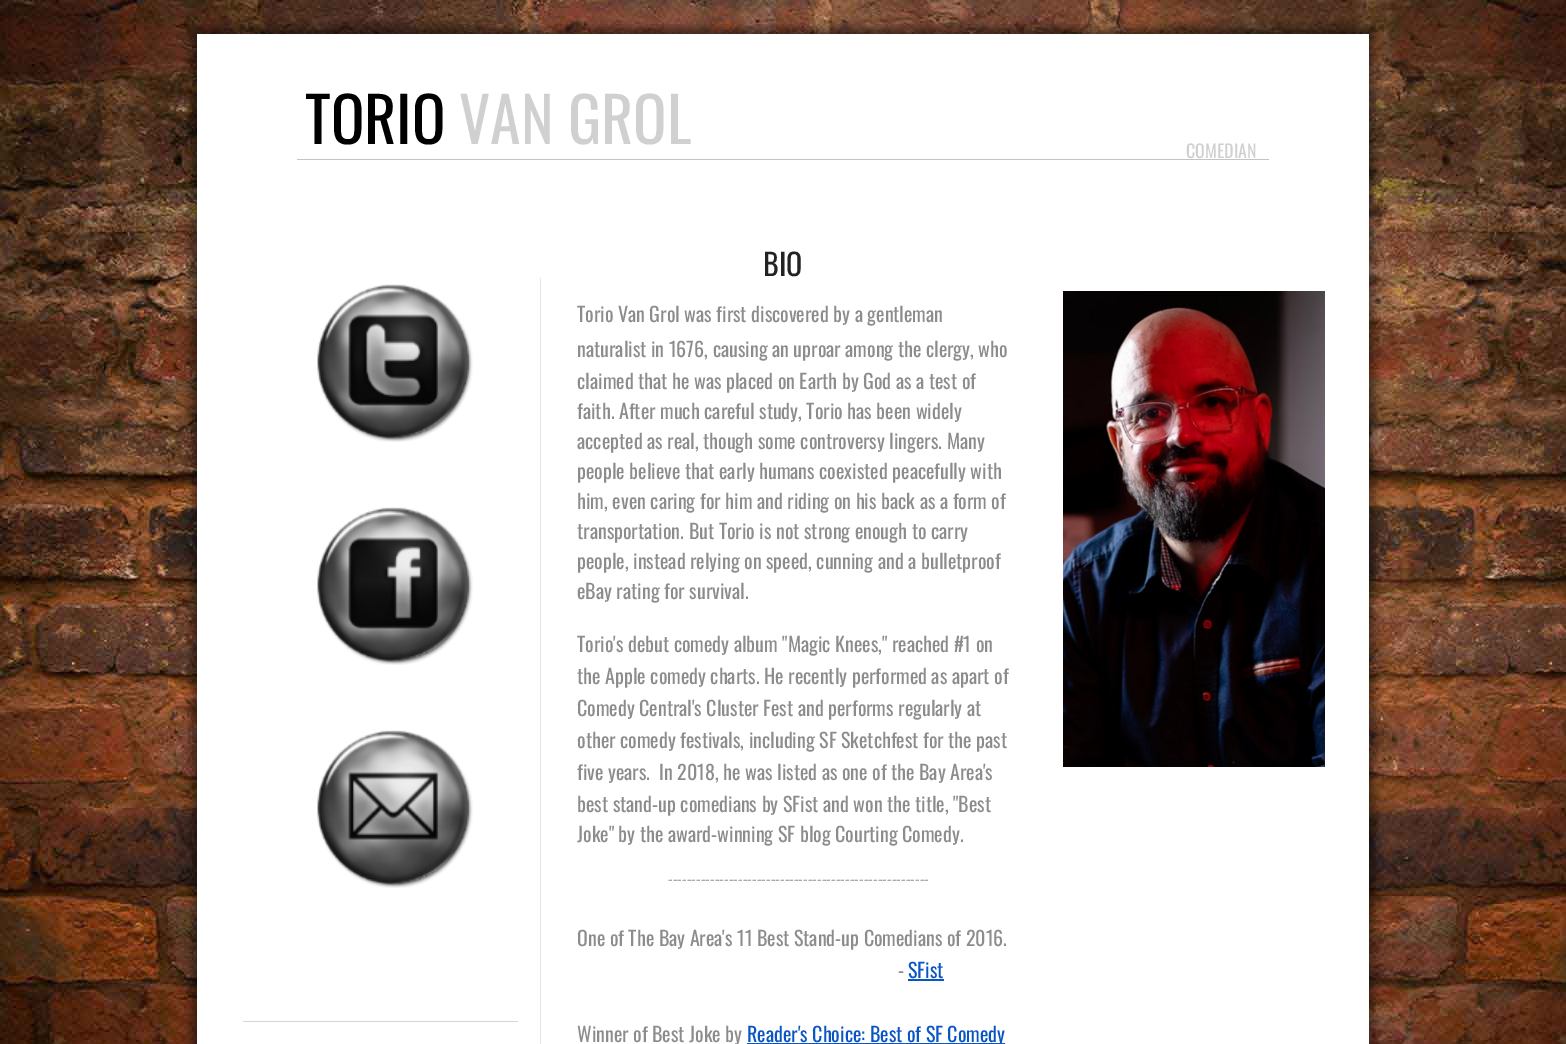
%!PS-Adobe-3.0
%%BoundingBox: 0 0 1566 1044
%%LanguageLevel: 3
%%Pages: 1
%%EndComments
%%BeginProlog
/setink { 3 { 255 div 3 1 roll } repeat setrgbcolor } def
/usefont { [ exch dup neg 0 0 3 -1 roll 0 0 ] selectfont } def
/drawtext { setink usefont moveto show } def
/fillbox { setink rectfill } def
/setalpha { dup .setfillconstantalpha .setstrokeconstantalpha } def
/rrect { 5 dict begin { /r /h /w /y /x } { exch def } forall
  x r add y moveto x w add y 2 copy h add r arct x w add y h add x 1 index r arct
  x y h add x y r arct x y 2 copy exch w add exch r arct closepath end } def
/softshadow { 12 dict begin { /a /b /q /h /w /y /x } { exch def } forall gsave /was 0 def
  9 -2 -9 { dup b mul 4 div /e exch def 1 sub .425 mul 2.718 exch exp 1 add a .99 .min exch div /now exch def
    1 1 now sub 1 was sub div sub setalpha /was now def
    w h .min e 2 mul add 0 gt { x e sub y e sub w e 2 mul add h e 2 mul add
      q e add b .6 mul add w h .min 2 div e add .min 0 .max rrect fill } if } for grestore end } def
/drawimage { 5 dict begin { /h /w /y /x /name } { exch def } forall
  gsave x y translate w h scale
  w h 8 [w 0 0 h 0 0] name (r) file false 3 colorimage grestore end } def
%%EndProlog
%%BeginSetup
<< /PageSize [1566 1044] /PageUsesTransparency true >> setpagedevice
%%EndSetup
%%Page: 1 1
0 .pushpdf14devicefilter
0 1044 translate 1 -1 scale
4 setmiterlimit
0 0 1566 1044 255 255 255 fillbox
(assets/img1.rgb) 0 0 1566 1044 drawimage
0 0 0 setink
191 28 1184 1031 0 5 0.5 softshadow
197 34 1172 1010 255 255 255 fillbox
(TORIO) 305 144 /Oswald-Regular 62 0 0 0 drawtext
(VAN GROL) 459 144 /Oswald-Regular 62 208 208 208 drawtext
(COMEDIAN) 1186 158 /Oswald-Regular 18 208 208 208 drawtext
297 159 972 1 196 196 196 fillbox
(BIO) 763 276 /Oswald-Regular 30 35 35 35 drawtext
(assets/img2.rgb) 317 284 156 158 drawimage
540 278 1 766 229 229 229 fillbox
(Torio Van Grol was first discovered by a gentleman) 577 322 /Oswald-Regular 20 140 140 140 drawtext
(naturalist in 1676, causing an uproar among the clergy, who) 577 357 /Oswald-Regular 20 140 140 140 drawtext
(claimed that he was placed on Earth by God as a test of) 577 389 /Oswald-Regular 20 140 140 140 drawtext
(faith. After much careful study, Torio has been widely) 577 419 /Oswald-Regular 20 140 140 140 drawtext
(accepted as real, though some controversy lingers. Many) 577 449 /Oswald-Regular 20 140 140 140 drawtext
(people believe that early humans coexisted peacefully with) 577 479 /Oswald-Regular 20 140 140 140 drawtext
(him, even caring for him and riding on his back as a form of) 577 509 /Oswald-Regular 20 140 140 140 drawtext
(transportation. But Torio is not strong enough to carry) 577 539 /Oswald-Regular 20 140 140 140 drawtext
(people, instead relying on speed, cunning and a bulletproof) 577 569 /Oswald-Regular 20 140 140 140 drawtext
(eBay rating for survival.) 577 599 /Oswald-Regular 20 140 140 140 drawtext
(Torio's debut comedy album "Magic Knees," reached #1 on) 577 652 /Oswald-Regular 20 140 140 140 drawtext
(the Apple comedy charts. He recently performed as apart of) 577 684 /Oswald-Regular 20 140 140 140 drawtext
(Comedy Central's Cluster Fest and performs regularly at) 577 716 /Oswald-Regular 20 140 140 140 drawtext
(other comedy festivals, including SF Sketchfest for the past) 577 748 /Oswald-Regular 20 140 140 140 drawtext
(five years.) 577 780 /Oswald-Regular 20 140 140 140 drawtext
(In 2018, he was listed as one of the Bay Area's) 659 780 /Oswald-Regular 20 140 140 140 drawtext
(best stand-up comedians by SFist and won the title, "Best) 577 812 /Oswald-Regular 20 140 140 140 drawtext
(Joke" by the award-winning SF blog Courting Comedy.) 577 842 /Oswald-Regular 20 140 140 140 drawtext
(--------------------------------------------------------) 668 884 /LiberationSans-Regular 14 140 140 140 drawtext
(One of The Bay Area's 11 Best Stand-up Comedians of 2016.) 577 946 /Oswald-Regular 20 140 140 140 drawtext
(-) 898 978 /Oswald-Regular 20 140 140 140 drawtext
(SFist) 908 978 /Oswald-Regular 20 10 85 197 drawtext
908 979 36 2 10 85 197 fillbox
(Winner of Best Joke by) 577 1042 /Oswald-Regular 20 140 140 140 drawtext
747 1043 258 1 10 85 197 fillbox
(Reader's Choice: Best of SF Comedy) 747 1042 /Oswald-Regular 20 10 85 197 drawtext
(assets/img3.rgb) 1063 291 262 476 drawimage
(assets/img4.rgb) 317 507 156 158 drawimage
(assets/img5.rgb) 317 730 156 158 drawimage
243 1021 275 1 213 213 213 fillbox
.poppdf14devicefilter showpage
%%EOF
